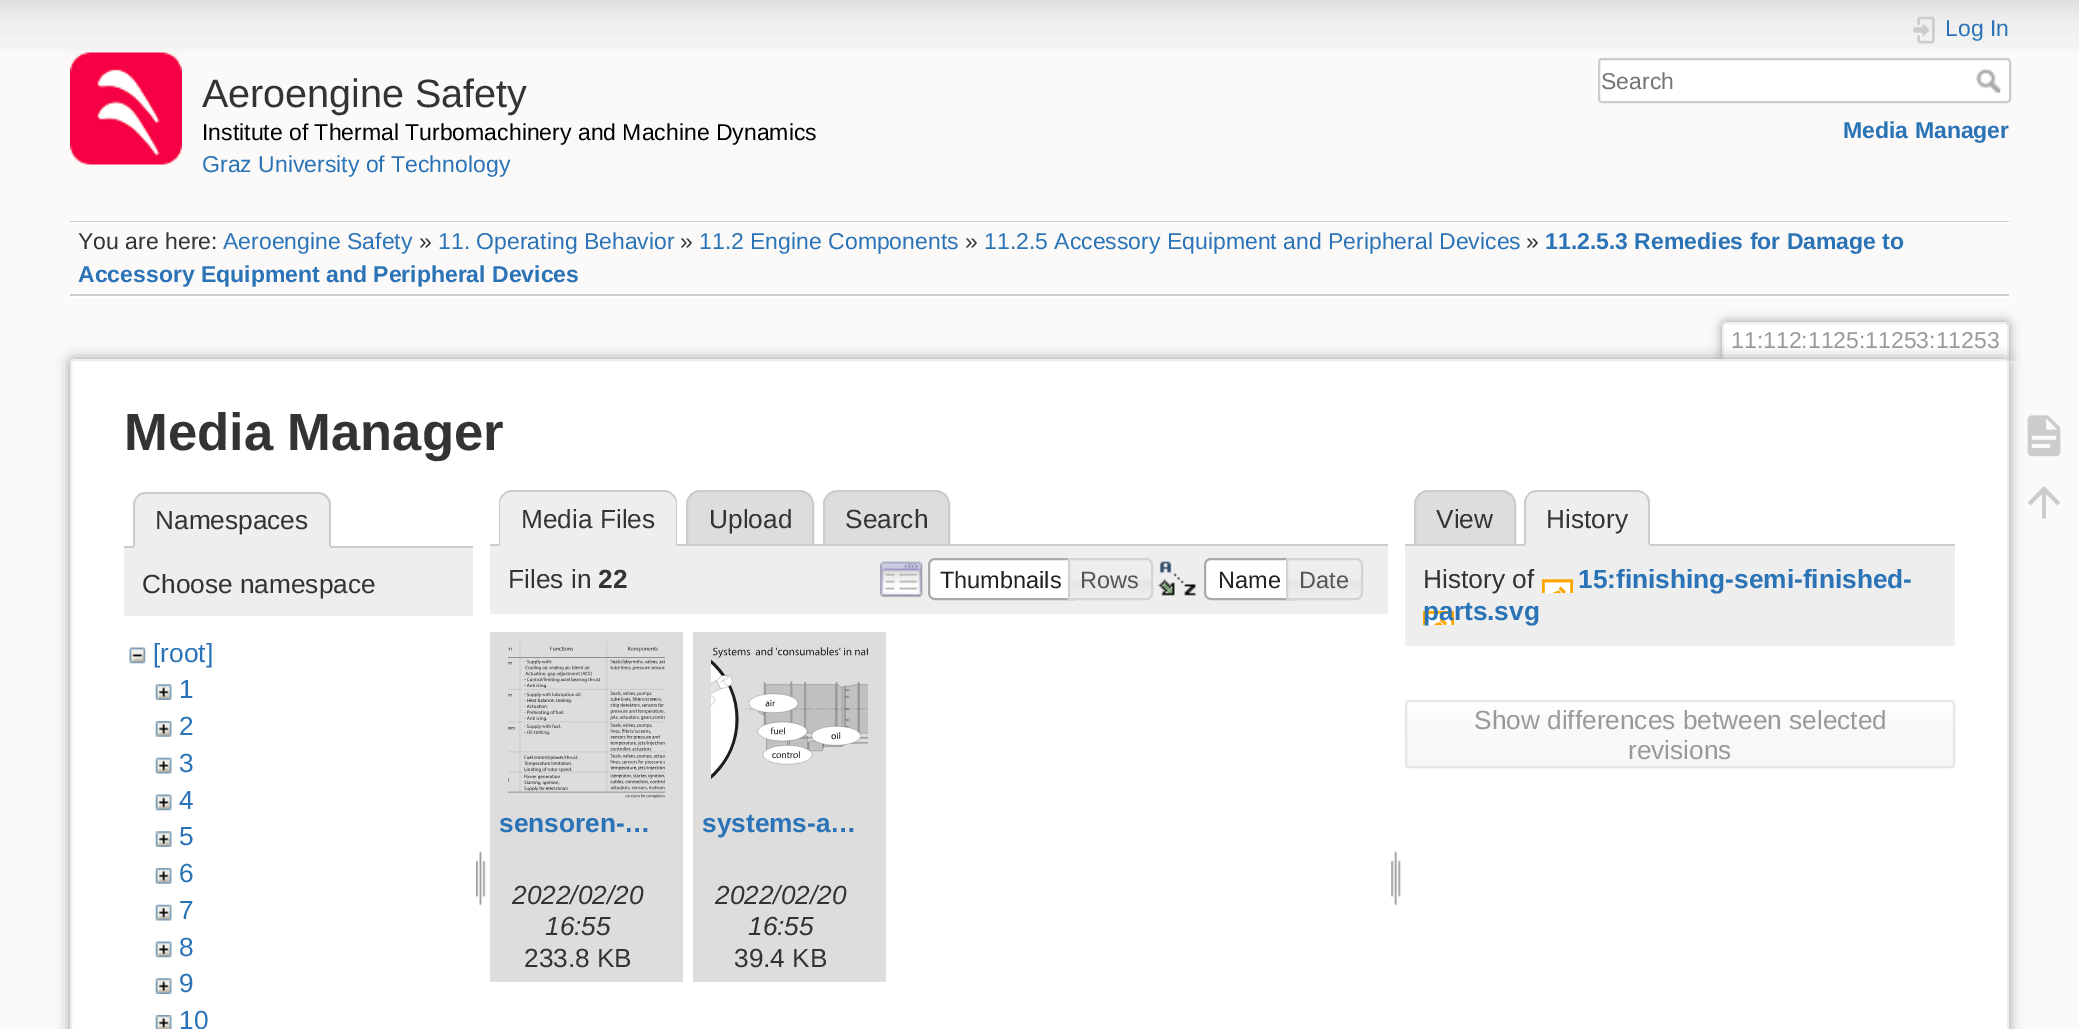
%!PS-Adobe-3.0
%%BoundingBox: 0 0 2079 1029
%%LanguageLevel: 3
%%Pages: 1
%%EndComments
%%BeginProlog
/setink { 3 { 255 div 3 1 roll } repeat setrgbcolor } def
/usefont { [ exch dup neg 0 0 3 -1 roll 0 0 ] selectfont } def
/drawtext { setink usefont moveto show } def
/fillbox { setink rectfill } def
/setalpha { dup .setfillconstantalpha .setstrokeconstantalpha } def
/rrect { 5 dict begin { /r /h /w /y /x } { exch def } forall
  x r add y moveto x w add y 2 copy h add r arct x w add y h add x 1 index r arct
  x y h add x y r arct x y 2 copy exch w add exch r arct closepath end } def
/softshadow { 12 dict begin { /a /b /q /h /w /y /x } { exch def } forall gsave /was 0 def
  9 -2 -9 { dup b mul 4 div /e exch def 1 sub .425 mul 2.718 exch exp 1 add a .99 .min exch div /now exch def
    1 1 now sub 1 was sub div sub setalpha /was now def
    w h .min e 2 mul add 0 gt { x e sub y e sub w e 2 mul add h e 2 mul add
      q e add b .6 mul add w h .min 2 div e add .min 0 .max rrect fill } if } for grestore end } def
/drawimage { 5 dict begin { /h /w /y /x /name } { exch def } forall
  gsave x y translate w h scale
  w h 8 [w 0 0 h 0 0] name (r) file false 3 colorimage grestore end } def
%%EndProlog
%%BeginSetup
<< /PageSize [2079 1029] /PageUsesTransparency true >> setpagedevice
%%EndSetup
%%Page: 1 1
0 .pushpdf14devicefilter
0 1029 translate 1 -1 scale
4 setmiterlimit
0 0 2079 1029 251 250 249 fillbox
(assets/img1.rgb) 0 0 2079 51 drawimage
(assets/img2.rgb) 70 52 112 113 drawimage
(Aeroengine Safety) 202 107 /LiberationSans-Regular 39.5 51 51 51 drawtext
(Institute of Thermal Turbomachinery and Machine Dynamics) 202 140 /LiberationSans-Regular 23 0 0 0 drawtext
(Graz University of Technology) 202 172 /LiberationSans-Regular 23 43 115 183 drawtext
(assets/img3.rgb) 1913 16 22 28 drawimage
(Log In) 1945 36 /LiberationSans-Regular 23 43 115 183 drawtext
255 255 255 setink
1599 59 411 43 3 rrect gsave fill grestore
204 204 204 setink
2 setlinewidth
stroke
(Search) 1601 89 /LiberationSans-Regular 23 117 117 117 drawtext
(assets/img4.rgb) 1976 68 25 25 drawimage
(Media Manager) 1843 138 /LiberationSans-Bold 23 43 115 183 drawtext
70 221 1939 1 204 204 204 fillbox
70 296 1939 2 255 255 255 fillbox
70 222 1939 2 255 255 255 fillbox
70 294 1939 2 204 204 204 fillbox
(You are here:) 78 249 /LiberationSans-Regular 23 51 51 51 drawtext
(Aeroengine Safety) 223 249 /LiberationSans-Regular 23 43 115 183 drawtext
(») 419 249 /LiberationSans-Regular 23 51 51 51 drawtext
(11. Operating Behavior) 438 249 /LiberationSans-Regular 23 43 115 183 drawtext
(») 680 249 /LiberationSans-Regular 23 51 51 51 drawtext
(11.2 Engine Components) 699 249 /LiberationSans-Regular 23 43 115 183 drawtext
(») 965 249 /LiberationSans-Regular 23 51 51 51 drawtext
(11.2.5 Accessory Equipment and Peripheral Devices) 984 249 /LiberationSans-Regular 23 43 115 183 drawtext
(») 1526 249 /LiberationSans-Regular 23 51 51 51 drawtext
(11.2.5.3 Remedies for Damage to) 1545 249 /LiberationSans-Bold 23 43 115 183 drawtext
(Accessory Equipment and Peripheral Devices) 78 282 /LiberationSans-Bold 23 43 115 183 drawtext
gsave
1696 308 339 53 rectclip
153 153 153 setink
1722 322 287 39 4 5.5 1 softshadow
grestore
255 255 255 setink
1726 324 moveto 2005 324 lineto 2006 324 2007 325 2007 326 curveto 2007 361 lineto 1724 361 lineto 1724 326 lineto 1724 325 1725 324 1726 324 curveto closepath fill
1724 322 283 2 238 238 238 fillbox
2007 324 2 37 238 238 238 fillbox
1722 324 2 37 238 238 238 fillbox
(11:112:1125:11253:11253) 1731 348 /LiberationSans-Regular 23 153 153 153 drawtext
70 359 1939 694 4 6.5 1 softshadow
255 255 255 setink
71 360 1937 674 3 rrect gsave fill grestore
238 238 238 setink
stroke
(Media Manager) 124 450 /LiberationSans-Bold 52.5 51 51 51 drawtext
124 546 349 2 204 204 204 fillbox
238 238 238 setink
147 492 moveto 317 492 lineto 324.5 492 331 498.5 331 506 curveto 331 548 lineto 133 548 lineto 133 506 lineto 133 498.5 139.5 492 147 492 curveto closepath fill
204 204 204 setink
146 492 moveto 143 492 139 493 137 496 curveto 138 497 lineto 140 495 143 494 146 494 curveto 318 494 lineto 321 494 324 495 325 497 curveto 327 496 lineto 325 493 321 492 318 492 curveto closepath fill
327 496 moveto 329 497 330 500 331 503 curveto 331 548 lineto 329 546 lineto 329 505 lineto 329 502 328 499 325 497 curveto closepath fill
238 238 238 setink
331 548 moveto 329 546 lineto 135 546 lineto 133 548 lineto closepath fill
204 204 204 setink
133 548 moveto 135 546 lineto 135 505 lineto 135 502 136 499 138 497 curveto 137 496 lineto 135 498 133 501 133 505 curveto closepath fill
(Namespaces) 155 529 /LiberationSans-Regular 26.25 51 51 51 drawtext
124 548 349 68 238 238 238 fillbox
(Choose namespace) 142 593 /LiberationSans-Regular 26.25 51 51 51 drawtext
(assets/img5.rgb) 129 647 17 17 drawimage
([root]) 153 662 /LiberationSans-Regular 26.25 43 115 183 drawtext
(assets/img6.rgb) 155 684 17 16 drawimage
(1) 179 698 /LiberationSans-Regular 26.25 43 115 183 drawtext
(assets/img7.rgb) 155 721 17 16 drawimage
(2) 179 735 /LiberationSans-Regular 26.25 43 115 183 drawtext
(assets/img8.rgb) 155 757 17 17 drawimage
(3) 179 772 /LiberationSans-Regular 26.25 43 115 183 drawtext
(assets/img9.rgb) 155 794 17 17 drawimage
(4) 179 809 /LiberationSans-Regular 26.25 43 115 183 drawtext
(assets/img6.rgb) 155 831 17 16 drawimage
(5) 179 845 /LiberationSans-Regular 26.25 43 115 183 drawtext
(assets/img7.rgb) 155 868 17 16 drawimage
(6) 179 882 /LiberationSans-Regular 26.25 43 115 183 drawtext
(assets/img8.rgb) 155 904 17 17 drawimage
(7) 179 919 /LiberationSans-Regular 26.25 43 115 183 drawtext
(assets/img9.rgb) 155 941 17 17 drawimage
(8) 179 956 /LiberationSans-Regular 26.25 43 115 183 drawtext
(assets/img6.rgb) 155 978 17 16 drawimage
(9) 179 992 /LiberationSans-Regular 26.25 43 115 183 drawtext
(assets/img10.rgb) 155 1015 17 14 drawimage
(10) 179 1029 /LiberationSans-Regular 26.25 43 115 183 drawtext
(assets/img11.rgb) 476 850 10 56 drawimage
221 221 221 setink
700 491 moveto 800 491 lineto 807 491 813 497 813 504 curveto 813 545 lineto 687 545 lineto 687 504 lineto 687 497 693 491 700 491 curveto closepath gsave fill grestore
204 204 204 setink
stroke
221 221 221 setink
837 491 moveto 936 491 lineto 943 491 949 497 949 504 curveto 949 545 lineto 824 545 lineto 824 504 lineto 824 497 830 491 837 491 curveto closepath gsave fill grestore
204 204 204 setink
stroke
490 544 898 2 204 204 204 fillbox
238 238 238 setink
513 490 moveto 663 490 lineto 670.5 490 677 496.5 677 504 curveto 677 546 lineto 499 546 lineto 499 504 lineto 499 496.5 505.5 490 513 490 curveto closepath fill
204 204 204 setink
512 490 moveto 508 490 505 492 503 494 curveto 504 495 lineto 506 493 509 492 512 492 curveto 664 492 lineto 667 492 670 493 672 495 curveto 673 494 lineto 671 492 668 490 664 490 curveto closepath fill
673 494 moveto 676 496 677 500 677 503 curveto 677 546 lineto 675 544 lineto 676 544 lineto 676 503 lineto 676 500 674 497 672 495 curveto closepath fill
238 238 238 setink
499 546 moveto 677 546 lineto 675 544 lineto 501 544 lineto closepath fill
204 204 204 setink
503 494 moveto 500 496 499 500 499 503 curveto 499 546 lineto 501 544 lineto 500 544 lineto 500 503 lineto 500 500 502 497 504 495 curveto closepath fill
(Media Files) 521 528 /LiberationSans-Regular 26.25 51 51 51 drawtext
(Upload) 709 528 /LiberationSans-Regular 26.25 51 51 51 drawtext
(Search) 845 528 /LiberationSans-Regular 26.25 51 51 51 drawtext
490 546 898 68 238 238 238 fillbox
(Files in) 508 588 /LiberationSans-Regular 26.25 51 51 51 drawtext
(22) 598 588 /LiberationSans-Bold 26.25 51 51 51 drawtext
(assets/img12.rgb) 880 561 43 37 drawimage
255 255 255 setink
935 558 moveto 1076 558 lineto 1076 600 lineto 935 600 lineto 931 600 928 597 928 593 curveto 928 565 lineto 928 561 931 558 935 558 curveto closepath fill
(assets/img13.rgb) 927 559 6 41 drawimage
170 170 170 setink
935 559 moveto 1075 559 lineto 1075 599 lineto 935 599 lineto 931.5 599 929 596.5 929 593 curveto 929 565 lineto 929 561.5 931.5 559 935 559 curveto closepath stroke
(Thumbnails) 940 588 /LiberationSans-Regular 23.5 33 33 33 drawtext
(assets/img14.rgb) 1067 558 86 42 drawimage
211 211 211 setink
1069 559 moveto 1146 559 lineto 1149.5 559 1152 561.5 1152 565 curveto 1152 593 lineto 1152 596.5 1149.5 599 1146 599 curveto 1069 599 lineto closepath stroke
(Rows) 1080 588 /LiberationSans-Regular 23.5 85 85 85 drawtext
(assets/img15.rgb) 1158 561 38 35 drawimage
255 255 255 setink
1211 558 moveto 1295 558 lineto 1295 600 lineto 1211 600 lineto 1207 600 1204 597 1204 593 curveto 1204 565 lineto 1204 561 1207 558 1211 558 curveto closepath fill
(assets/img16.rgb) 1204 560 5 40 drawimage
170 170 170 setink
1211 559 moveto 1294 559 lineto 1294 599 lineto 1211 599 lineto 1207.5 599 1205 596.5 1205 593 curveto 1205 565 lineto 1205 561.5 1207.5 559 1211 559 curveto closepath stroke
(Name) 1218 588 /LiberationSans-Regular 23.5 33 33 33 drawtext
(assets/img17.rgb) 1288 558 75 42 drawimage
211 211 211 setink
1287 559 moveto 1356 559 lineto 1359.5 559 1362 561.5 1362 565 curveto 1362 593 lineto 1362 596.5 1359.5 599 1356 599 curveto 1287 599 lineto closepath stroke
(Date) 1299 588 /LiberationSans-Regular 23.5 85 85 85 drawtext
490 632 193 350 221 221 221 fillbox
(assets/img18.rgb) 508 641 157 157 drawimage
(sensoren-…) 499 832 /LiberationSans-Bold 26.25 43 115 183 drawtext
(2022/02/20) 512 904 /LiberationSans-Italic 26.25 51 51 51 drawtext
(16:55) 545 935 /LiberationSans-Italic 26.25 51 51 51 drawtext
(233.8 KB) 524 967 /LiberationSans-Regular 26.25 51 51 51 drawtext
693 632 193 350 221 221 221 fillbox
(assets/img19.rgb) 711 647 157 132 drawimage
(systems-a…) 702 832 /LiberationSans-Bold 26.25 43 115 183 drawtext
(2022/02/20) 715 904 /LiberationSans-Italic 26.25 51 51 51 drawtext
(16:55) 748 935 /LiberationSans-Italic 26.25 51 51 51 drawtext
(39.4 KB) 734 967 /LiberationSans-Regular 26.25 51 51 51 drawtext
(assets/img20.rgb) 1391 850 10 56 drawimage
221 221 221 setink
1428 491 moveto 1502 491 lineto 1509 491 1515 497 1515 504 curveto 1515 545 lineto 1415 545 lineto 1415 504 lineto 1415 497 1421 491 1428 491 curveto closepath gsave fill grestore
204 204 204 setink
stroke
(View) 1436 528 /LiberationSans-Regular 26.25 51 51 51 drawtext
1405 544 550 2 204 204 204 fillbox
238 238 238 setink
1538 490 moveto 1636 490 lineto 1643.5 490 1650 496.5 1650 504 curveto 1650 546 lineto 1524 546 lineto 1524 504 lineto 1524 496.5 1530.5 490 1538 490 curveto closepath fill
204 204 204 setink
1537 490 moveto 1534 490 1530 491 1528 494 curveto 1529 495 lineto 1531 493 1534 492 1537 492 curveto 1637 492 lineto 1640 492 1643 493 1645 495 curveto 1646 494 lineto 1644 492 1641 490 1637 490 curveto closepath fill
1646 494 moveto 1649 496 1650 500 1650 503 curveto 1650 546 lineto 1648 544 lineto 1648 503 lineto 1648 500 1647 497 1645 495 curveto closepath fill
238 238 238 setink
1524 546 moveto 1650 546 lineto 1648 544 lineto 1526 544 lineto closepath fill
204 204 204 setink
1524 546 moveto 1524 501 lineto 1525 498 1526 496 1528 494 curveto 1529 495 lineto 1527 497 1526 500 1526 503 curveto 1526 544 lineto closepath fill
(History) 1546 528 /LiberationSans-Regular 26.25 51 51 51 drawtext
1405 546 550 100 238 238 238 fillbox
(History of) 1423 588 /LiberationSans-Regular 26.25 51 51 51 drawtext
(15:finishing-semi-finished-) 1578 588 /LiberationSans-Bold 26.25 43 115 183 drawtext
(assets/img21.rgb) 1423 579 150 46 drawimage
(parts.svg) 1423 620 /LiberationSans-Bold 26.25 43 115 183 drawtext
gsave
1405 700 550 68 4 rrect clip newpath
gsave 1405 702 moveto 1955 702 lineto 1955 767 lineto 1405 767 lineto closepath clip newpath
<< /ShadingType 2 /ColorSpace /DeviceRGB /Coords [1680 702 1680 767] /Extend [true true] /Function << /FunctionType 3 /Domain [0 1] /Functions [<< /FunctionType 2 /Domain [0 1] /C0 [1 1 1] /C1 [0.98 0.98 0.98] /N 1 >> << /FunctionType 2 /Domain [0 1] /C0 [0.98 0.98 0.98] /C1 [0.969 0.969 0.969] /N 1 >> << /FunctionType 2 /Domain [0 1] /C0 [0.902 0.902 0.902] /C1 [0.902 0.902 0.902] /N 1 >>] /Bounds [0.3 0.99] /Encode [0 1 0 1 0 1] >> >> shfill grestore
grestore
230 230 230 setink
1406 701 548 66 3 rrect stroke
(Show differences between selected) 1474 729 /LiberationSans-Regular 26.25 153 153 153 drawtext
(revisions) 1628 759 /LiberationSans-Regular 26.25 153 153 153 drawtext
(assets/img22.rgb) 2027 415 34 42 drawimage
204 204 204 setink
2046 518.5 moveto 2042 518.5 lineto 2042 494 lineto 2030.5 505.5 lineto 2028 502.5 lineto 2044 486 lineto 2060 502.5 lineto 2057.5 505.5 lineto 2046 494 lineto closepath fill
.poppdf14devicefilter showpage
%%EOF
